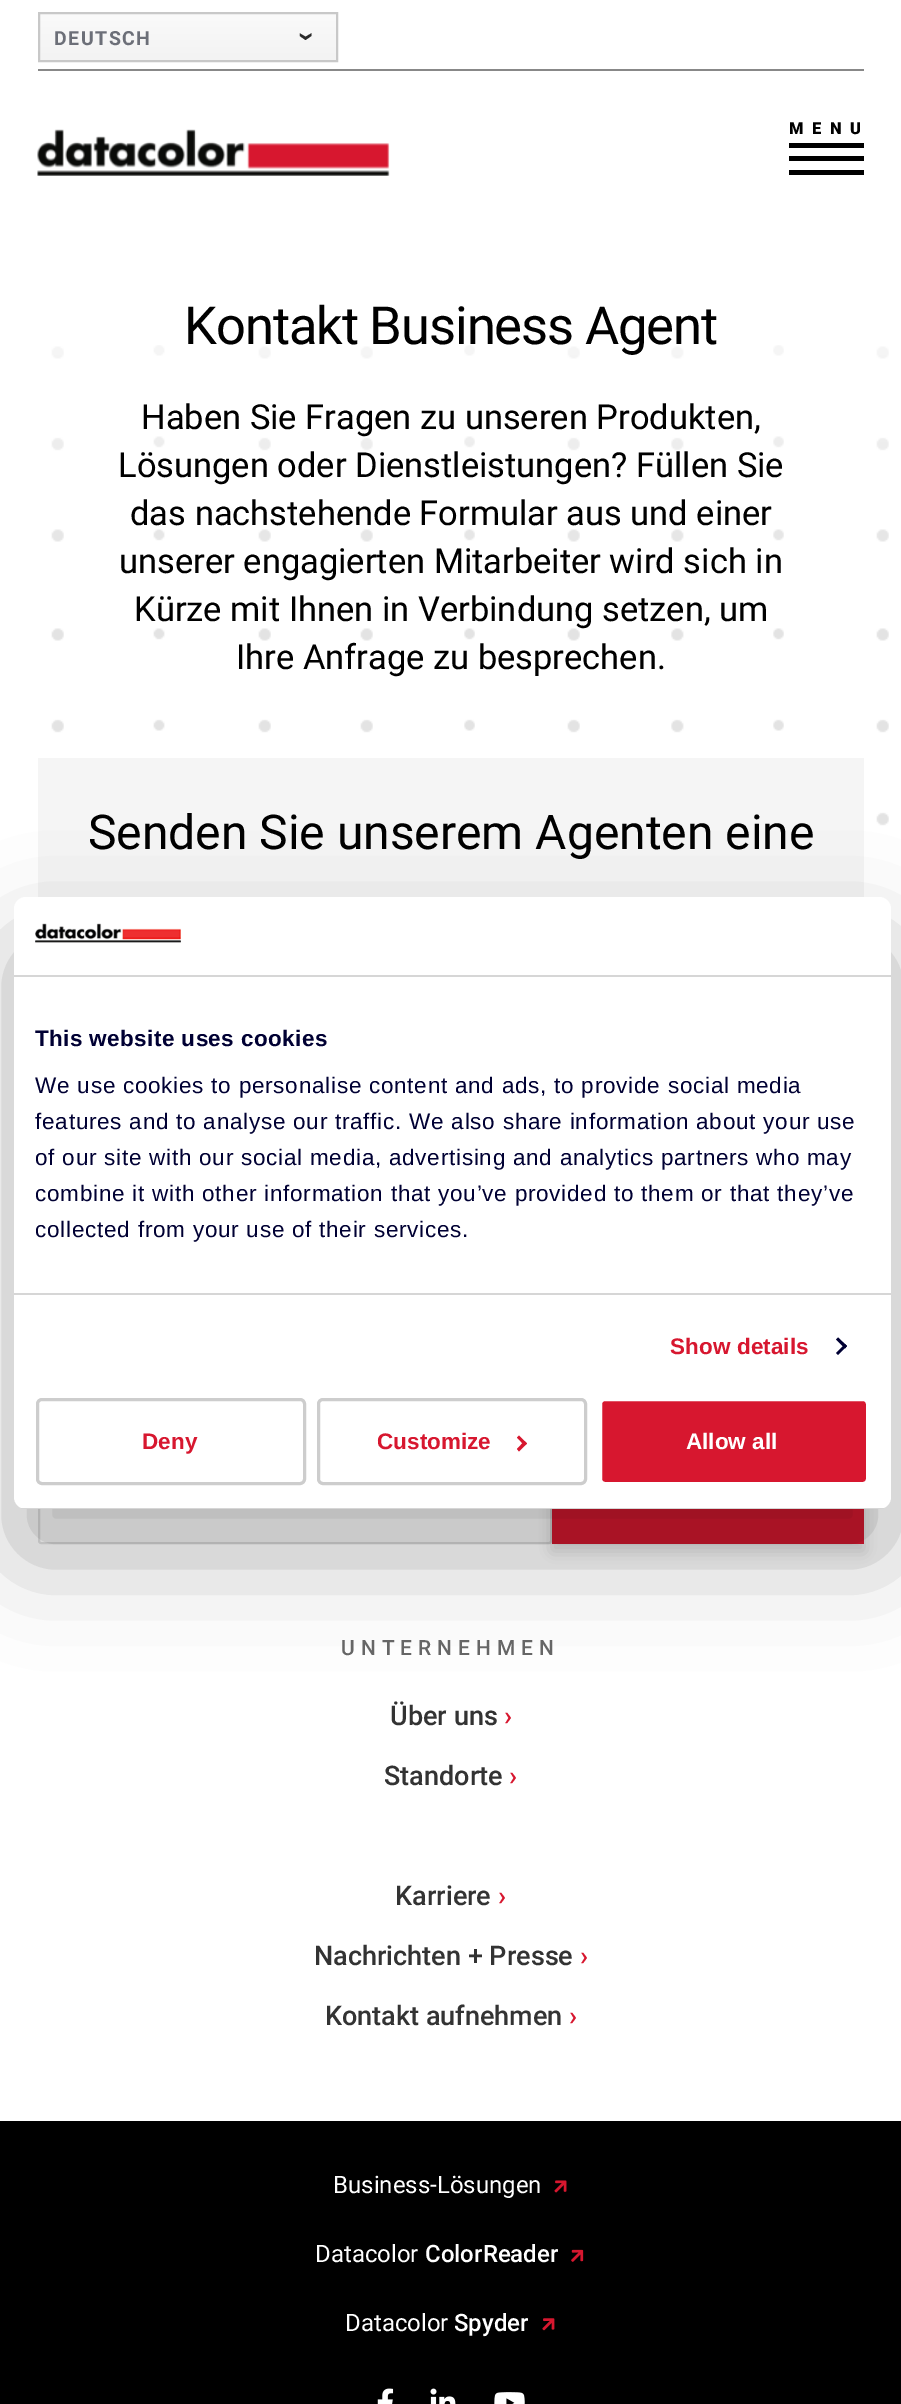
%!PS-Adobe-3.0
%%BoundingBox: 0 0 901 2404
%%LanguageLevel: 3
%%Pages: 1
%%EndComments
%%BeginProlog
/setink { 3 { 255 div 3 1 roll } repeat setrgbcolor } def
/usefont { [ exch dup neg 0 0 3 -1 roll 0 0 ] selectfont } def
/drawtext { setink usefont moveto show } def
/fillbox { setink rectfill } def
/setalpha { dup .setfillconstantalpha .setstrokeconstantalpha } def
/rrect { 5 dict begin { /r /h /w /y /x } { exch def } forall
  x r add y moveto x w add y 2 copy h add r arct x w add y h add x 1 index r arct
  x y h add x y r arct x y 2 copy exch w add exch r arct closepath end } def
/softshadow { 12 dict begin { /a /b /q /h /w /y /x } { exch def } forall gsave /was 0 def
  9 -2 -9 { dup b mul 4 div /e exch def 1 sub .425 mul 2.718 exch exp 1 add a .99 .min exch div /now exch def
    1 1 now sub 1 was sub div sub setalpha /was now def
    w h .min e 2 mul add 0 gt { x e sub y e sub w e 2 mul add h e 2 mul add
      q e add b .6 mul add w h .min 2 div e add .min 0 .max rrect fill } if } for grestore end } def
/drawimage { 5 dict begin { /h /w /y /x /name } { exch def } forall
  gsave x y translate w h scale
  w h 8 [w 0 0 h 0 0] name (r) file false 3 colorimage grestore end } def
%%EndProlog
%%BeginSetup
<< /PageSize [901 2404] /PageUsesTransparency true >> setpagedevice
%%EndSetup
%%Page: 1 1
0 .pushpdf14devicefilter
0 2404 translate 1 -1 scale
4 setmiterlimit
0 0 901 2404 255 255 255 fillbox
38 69 826 2 136 136 136 fillbox
gsave 40 14 moveto 336 14 lineto 336 60 lineto 40 60 lineto closepath clip newpath
<< /ShadingType 2 /ColorSpace /DeviceRGB /Coords [188 13 188 60] /Extend [true true] /Function << /FunctionType 2 /Domain [0 1] /C0 [0.98 0.98 0.98] /C1 [0.953 0.953 0.953] /N 1 >> >> shfill grestore
200 200 200 setink
2 setlinewidth
39 13 298 48 rectstroke
/Roboto-Bold 19.5 usefont
108 111 120 setink
54 45 moveto 1.5 0 (DEUTSCH) ashow
/Roboto-Black 30 usefont
42 42 42 setink
gsave 298 32 translate 90 rotate 0 0 moveto (›) show grestore
(assets/img1.rgb) 37 129 353 47 drawimage
/Roboto-Black 16.5 usefont
0 0 0 setink
789 134 moveto 8.5 0 (MENU) ashow
789 143 75 5 0 0 0 fillbox
789 156 75 5 0 0 0 fillbox
789 170 75 5 0 0 0 fillbox
(assets/img2.rgb) 51 345 838 558 drawimage
/Roboto-Regular 52.5 usefont
184 344 moveto -1.1 0 (Kontakt Business Agent) ashow
(Haben Sie Fragen zu unseren Produkten,) 141 429 /Roboto-Regular 34.5 0 0 0 drawtext
(Lösungen oder Dienstleistungen? Füllen Sie) 118 477 /Roboto-Regular 34.5 0 0 0 drawtext
(das nachstehende Formular aus und einer) 130 525 /Roboto-Regular 34.5 0 0 0 drawtext
(unserer engagierten Mitarbeiter wird sich in) 119 573 /Roboto-Regular 34.5 0 0 0 drawtext
(Kürze mit Ihnen in Verbindung setzen, um) 134 621 /Roboto-Regular 34.5 0 0 0 drawtext
(Ihre Anfrage zu besprechen.) 236 669 /Roboto-Regular 34.5 0 0 0 drawtext
38 758 826 139 245 245 245 fillbox
(Senden Sie unserem Agenten eine) 88 849 /Roboto-Regular 48 0 0 0 drawtext
226 226 226 setink
39 1470 512 73 2 rrect stroke
0 0 0 setink
552 1476 312 75 0 7.5 0.15 softshadow
552 1509 312 35 215 23 47 fillbox
0 0 0 setink
14 945 877 612 12 51 0.3 softshadow
255 255 255 setink
14 897 877 612 12 rrect fill
14 975 877 2 214 214 214 fillbox
(assets/img3.rgb) 35 923 146 20 drawimage
14 1293 877 2 214 214 214 fillbox
/LiberationSans-Bold 22.5 usefont
0 0 51 setink
35 1046 moveto 0.4 0 (This website uses cookies) ashow
/LiberationSans-Regular 22.5 usefont
35 1093 moveto 0.75 0 (We use cookies to personalise content and ads, to provide social media) ashow
35 1129 moveto 0.75 0 (features and to analyse our traffic. We also share information about your use) ashow
35 1165 moveto 0.75 0 (of our site with our social media, advertising and analytics partners who may) ashow
35 1201 moveto 0.75 0 (combine it with other information that you’ve provided to them or that they’ve) ashow
35 1237 moveto 0.75 0 (collected from your use of their services.) ashow
/LiberationSans-Bold 22.5 usefont
215 23 47 setink
670 1354 moveto 0.1 0 (Show details) ashow
0 0 51 setink
838 1337.5 moveto 847 1346 lineto 845 1348.5 lineto 836 1339.5 lineto closepath fill
845 1344 moveto 847 1346 lineto 838 1355 lineto 836 1353 lineto closepath fill
gsave
14 897 877 612 12 rrect clip newpath
14 1508 877 1 214 214 214 fillbox
grestore
205 205 205 setink
3 setlinewidth
37.5 1399.5 267 84 4.5 rrect stroke
(Deny) 142 1449 /LiberationSans-Bold 22.5 215 23 47 drawtext
205 205 205 setink
318.5 1399.5 267 84 4.5 rrect stroke
(Customize) 377 1449 /LiberationSans-Bold 22.5 215 23 47 drawtext
519 1435.5 moveto 527 1443.5 lineto 524.5 1445.5 lineto 517 1437.5 lineto closepath fill
524.5 1441 moveto 527 1443.5 lineto 519 1451.5 lineto 517 1449 lineto closepath fill
600.5 1399.5 267 84 4.5 rrect gsave fill grestore
255 255 255 setink
stroke
(Allow all) 686 1449 /LiberationSans-Bold 22.5 255 255 255 drawtext
/Roboto-Medium 21 usefont
102 102 102 setink
341 1655 moveto 6 0 (UNTERNEHMEN) ashow
(Über uns) 390 1725 /Roboto-Medium 27 51 51 51 drawtext
(›) 504 1725 /Roboto-Medium 27 215 23 47 drawtext
(Standorte) 384 1785 /Roboto-Medium 27 51 51 51 drawtext
(›) 509 1785 /Roboto-Medium 27 215 23 47 drawtext
(Karriere) 395 1905 /Roboto-Medium 27 51 51 51 drawtext
(›) 498 1905 /Roboto-Medium 27 215 23 47 drawtext
(Nachrichten + Presse) 314 1965 /Roboto-Medium 27 51 51 51 drawtext
(›) 580 1965 /Roboto-Medium 27 215 23 47 drawtext
(Kontakt aufnehmen) 325 2025 /Roboto-Medium 27 51 51 51 drawtext
(›) 569 2025 /Roboto-Medium 27 215 23 47 drawtext
0 2121 901 283 0 0 0 fillbox
(Business-Lösungen) 333 2193 /Roboto-Regular 24 255 255 255 drawtext
(assets/img4.rgb) 554 2180 13 13 drawimage
(Datacolor) 315 2262 /Roboto-Regular 24 255 255 255 drawtext
(ColorReader) 425 2262 /Roboto-Medium 24 255 255 255 drawtext
(assets/img5.rgb) 571 2249 13 13 drawimage
(Datacolor) 345 2331 /Roboto-Regular 24 255 255 255 drawtext
(Spyder) 454 2331 /Roboto-Medium 24 255 255 255 drawtext
(assets/img6.rgb) 542 2318 13 13 drawimage
(assets/img7.rgb) 377 2388 17 16 drawimage
(assets/img8.rgb) 430 2388 26 16 drawimage
(assets/img9.rgb) 494 2392 31 12 drawimage
.poppdf14devicefilter showpage
%%EOF
